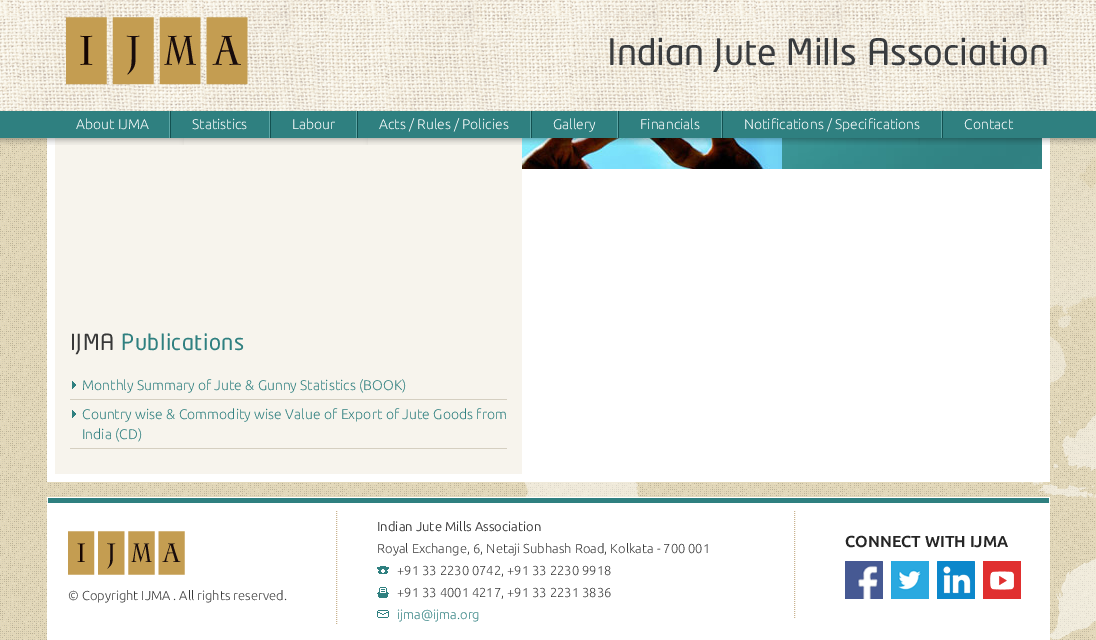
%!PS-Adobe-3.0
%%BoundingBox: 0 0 1096 640
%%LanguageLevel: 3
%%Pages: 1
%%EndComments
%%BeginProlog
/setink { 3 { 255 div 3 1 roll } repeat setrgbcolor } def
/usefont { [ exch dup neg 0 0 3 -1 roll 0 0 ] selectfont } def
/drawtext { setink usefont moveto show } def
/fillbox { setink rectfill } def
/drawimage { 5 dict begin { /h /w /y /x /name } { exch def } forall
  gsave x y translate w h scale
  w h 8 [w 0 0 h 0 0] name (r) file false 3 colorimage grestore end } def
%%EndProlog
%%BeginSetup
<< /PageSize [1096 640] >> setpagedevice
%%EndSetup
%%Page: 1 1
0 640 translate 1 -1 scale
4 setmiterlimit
0 0 1096 640 255 255 255 fillbox
(assets/img1.rgb) 0 138 1096 502 drawimage
(assets/img2.rgb) 524 138 572 502 drawimage
47 138 1003 344 255 255 255 fillbox
(assets/img5.rgb) 522 138 260 31 drawimage
(assets/img6.rgb) 782 138 260 31 drawimage
55 138 467 336 247 244 237 fillbox
(assets/img3.rgb) 0 0 1096 145 drawimage
(assets/img4.rgb) 66 17 182 68 drawimage
(Indian Jute Mills Association) 607 65 /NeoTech-Regular 36 57 60 63 drawtext
169 111 1 27 93 167 167 fillbox
(About IJMA) 76 129 /Ubuntu-Light 14 255 255 255 drawtext
269 111 1 27 93 167 167 fillbox
170 111 1 27 19 81 81 fillbox
(Statistics) 192 129 /Ubuntu-Light 14 255 255 255 drawtext
356 111 1 27 93 167 167 fillbox
270 111 1 27 19 81 81 fillbox
(Labour) 292 129 /Ubuntu-Light 14 255 255 255 drawtext
530 111 1 27 93 167 167 fillbox
357 111 1 27 19 81 81 fillbox
(Acts / Rules / Policies) 379 129 /Ubuntu-Light 14 255 255 255 drawtext
617 111 1 27 93 167 167 fillbox
531 111 1 27 19 81 81 fillbox
(Gallery) 553 129 /Ubuntu-Light 14 255 255 255 drawtext
721 111 1 27 93 167 167 fillbox
618 111 1 27 19 81 81 fillbox
(Financials) 640 129 /Ubuntu-Light 14 255 255 255 drawtext
941 111 1 27 93 167 167 fillbox
722 111 1 27 19 81 81 fillbox
(Notifications / Specifications) 744 129 /Ubuntu-Light 14 255 255 255 drawtext
942 111 1 27 19 81 81 fillbox
(Contact) 964 129 /Ubuntu-Light 14 255 255 255 drawtext
/NeoTech-Regular 22 usefont
56 56 56 setink
70 350 moveto 0.5 0 (IJMA) ashow
47 128 128 setink
121 350 moveto 0.5 0 (Publications) ashow
(assets/img7.rgb) 72 381 4 8 drawimage
70 399 437 1 213 207 193 fillbox
(Monthly Summary of Jute & Gunny Statistics \(BOOK\)) 82 390 /Ubuntu-Light 14 47 128 128 drawtext
(assets/img7.rgb) 72 410 4 8 drawimage
70 448 437 1 213 207 193 fillbox
47 128 128 setink
82 419 moveto 0.25 0 32 (Country wise & Commodity wise Value of Export of Jute Goods from) widthshow
(India \(CD\)) 82 439 /Ubuntu-Light 14 47 128 128 drawtext
47 497 1003 143 255 255 255 fillbox
48 498 1001 5 47 128 128 fillbox
(Indian Jute Mills Association) 377 531 /Ubuntu-Regular 13 56 56 56 drawtext
(Royal Exchange, 6, Netaji Subhash Road, Kolkata - 700 001) 377 553 /Ubuntu-Light 13 56 56 56 drawtext
(assets/img8.rgb) 377 566 12 8 drawimage
(+91 33 2230 0742, +91 33 2230 9918) 397 575 /Ubuntu-Light 13 56 56 56 drawtext
(assets/img9.rgb) 377 587 12 11 drawimage
(+91 33 4001 4217, +91 33 2231 3836) 397 597 /Ubuntu-Light 13 56 56 56 drawtext
(assets/img10.rgb) 377 610 12 8 drawimage
(ijma@ijma.org) 397 619 /Ubuntu-Light 13 47 128 128 drawtext
201 179 143 setink
[1 1] 0 setdash
794.5 511 moveto 794.5 619 lineto stroke
(CONNECT WITH IJMA) 845 547 /Ubuntu-Bold 16 38 38 38 drawtext
(assets/img11.rgb) 845 561 38 38 drawimage
(assets/img12.rgb) 891 561 38 38 drawimage
(assets/img13.rgb) 937 561 38 38 drawimage
(assets/img14.rgb) 983 561 38 38 drawimage
201 179 143 setink
336.5 511 moveto 336.5 625 lineto stroke
(assets/img15.rgb) 68 531 117 44 drawimage
(© Copyright IJMA . All rights reserved.) 68 600 /Ubuntu-Light 13 56 56 56 drawtext
showpage
%%EOF
